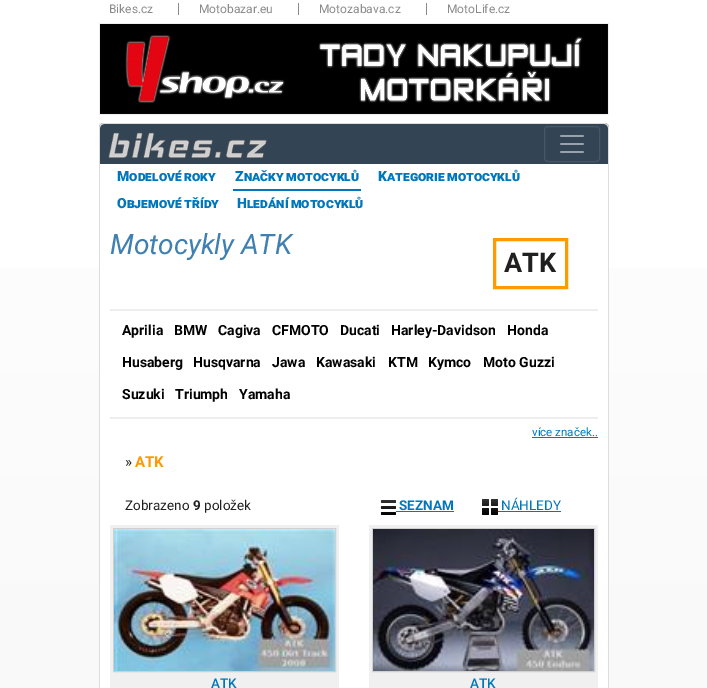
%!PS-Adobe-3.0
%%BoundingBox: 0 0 707 688
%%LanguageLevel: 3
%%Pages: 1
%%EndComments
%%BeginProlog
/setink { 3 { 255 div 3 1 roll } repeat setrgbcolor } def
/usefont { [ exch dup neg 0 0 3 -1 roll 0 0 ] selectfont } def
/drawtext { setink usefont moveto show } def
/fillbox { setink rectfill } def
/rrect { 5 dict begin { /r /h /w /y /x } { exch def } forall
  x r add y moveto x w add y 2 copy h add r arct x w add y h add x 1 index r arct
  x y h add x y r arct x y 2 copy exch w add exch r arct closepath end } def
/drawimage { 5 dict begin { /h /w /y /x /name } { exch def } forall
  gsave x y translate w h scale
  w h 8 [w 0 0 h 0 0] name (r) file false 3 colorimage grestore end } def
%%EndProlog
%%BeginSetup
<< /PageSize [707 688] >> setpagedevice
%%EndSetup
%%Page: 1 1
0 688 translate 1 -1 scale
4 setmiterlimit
0 0 707 688 255 255 255 fillbox
gsave 0 268 moveto 707 268 lineto 707 688 lineto 0 688 lineto closepath clip newpath
<< /ShadingType 2 /ColorSpace /DeviceRGB /Coords [353 0 354 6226] /Extend [true true] /Function << /FunctionType 2 /Domain [0 1] /C0 [1 1 1] /C1 [0.773 0.773 0.773] /N 1 >> >> shfill grestore
(Bikes.cz) 109 13 /Roboto-Regular 12 139 139 139 drawtext
178 3 1 12 139 139 139 fillbox
(Motobazar.eu) 199 13 /Roboto-Regular 12 139 139 139 drawtext
298 3 1 12 139 139 139 fillbox
(Motozabava.cz) 319 13 /Roboto-Regular 12 139 139 139 drawtext
426 3 1 12 139 139 139 fillbox
(MotoLife.cz) 447 13 /Roboto-Regular 12 139 139 139 drawtext
99 23 510 92 238 238 238 fillbox
(assets/img1.rgb) 100 24 508 90 drawimage
51 68 85 setink
104 123 moveto 604 123 lineto 607 123 609 125 609 128 curveto 609 164 lineto 99 164 lineto 99 128 lineto 99 125 101 123 104 123 curveto closepath fill
221 221 221 setink
104 123 moveto 604 123 lineto 607 123 609 125 609 128 curveto 609 164 lineto 99 164 lineto 99 128 lineto 99 125 101 123 104 123 curveto closepath 104 124 moveto 604 124 lineto 606 124 608 126 608 128 curveto 608 164 lineto 100 164 lineto 100 128 lineto 100 126 102 124 104 124 curveto closepath eofill
(assets/img2.rgb) 108 132 159 26 drawimage
71 87 102 setink
544.5 126.5 55 35 3.5 rrect stroke
(assets/img3.rgb) 560 135 24 18 drawimage
100 268 508 420 255 255 255 fillbox
221 221 221 setink
99 164 moveto 609 164 lineto 609 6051 lineto 609 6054 607 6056 604 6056 curveto 104 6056 lineto 101 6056 99 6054 99 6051 curveto closepath 100 164 moveto 608 164 lineto 608 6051 lineto 608 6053 606 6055 604 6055 curveto 104 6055 lineto 102 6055 100 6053 100 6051 curveto closepath eofill
/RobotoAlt-Black 14 usefont
0 119 187 setink
117 181 moveto -1 0 32 (Modelové roky) widthshow
233 189 128 2 0 119 187 fillbox
235 181 moveto -1 0 32 (Značky motocyklů) widthshow
378 181 moveto -1 0 32 (Kategorie motocyklů) widthshow
117 208 moveto -1 0 32 (Objemové třídy) widthshow
237 208 moveto -1 0 32 (Hledání motocyklů) widthshow
(Motocykly ATK) 110 254 /Roboto-Italic 28 64 128 176 drawtext
255 153 0 setink
3 setlinewidth
494.5 239.5 72 48 rectstroke
(ATK) 504 272 /Roboto-Bold 27 32 32 32 drawtext
110 309 488 2 238 238 238 fillbox
110 417 488 2 238 238 238 fillbox
(Aprilia) 122 335 /Roboto-Bold 14 0 0 0 drawtext
(BMW) 174 335 /Roboto-Bold 14 0 0 0 drawtext
(Cagiva) 218 335 /Roboto-Bold 14 0 0 0 drawtext
(CFMOTO) 272 335 /Roboto-Bold 14 0 0 0 drawtext
(Ducati) 340 335 /Roboto-Bold 14 0 0 0 drawtext
(Harley-Davidson) 391 335 /Roboto-Bold 14 0 0 0 drawtext
(Honda) 507 335 /Roboto-Bold 14 0 0 0 drawtext
(Husaberg) 122 367 /Roboto-Bold 14 0 0 0 drawtext
(Husqvarna) 193 367 /Roboto-Bold 14 0 0 0 drawtext
(Jawa) 272 367 /Roboto-Bold 14 0 0 0 drawtext
(Kawasaki) 316 367 /Roboto-Bold 14 0 0 0 drawtext
(KTM) 388 367 /Roboto-Bold 14 0 0 0 drawtext
(Kymco) 428 367 /Roboto-Bold 14 0 0 0 drawtext
(Moto Guzzi) 483 367 /Roboto-Bold 14 0 0 0 drawtext
(Suzuki) 122 399 /Roboto-Bold 14 0 0 0 drawtext
(Triumph) 175 399 /Roboto-Bold 14 0 0 0 drawtext
(Yamaha) 239 399 /Roboto-Bold 14 0 0 0 drawtext
(více značek..) 532 436 /Roboto-Regular 11.5 0 119 187 drawtext
532 437 66 1 0 119 187 fillbox
(») 125 467 /Roboto-Regular 15 32 32 32 drawtext
(ATK) 135 467 /Roboto-Bold 15 255 153 0 drawtext
(Zobrazeno) 125 510 /Roboto-Regular 13.5 32 32 32 drawtext
(9) 193 510 /Roboto-Bold 13.5 32 32 32 drawtext
(položek) 204 510 /Roboto-Regular 13.5 32 32 32 drawtext
(assets/img4.rgb) 380 500 16 15 drawimage
(SEZNAM) 399 510 /Roboto-Bold 13.5 0 119 187 drawtext
396 511 58 1 0 119 187 fillbox
(assets/img5.rgb) 482 499 16 16 drawimage
(NÁHLEDY) 501 510 /Roboto-Regular 13.5 0 119 187 drawtext
498 511 63 1 0 119 187 fillbox
110 525 229 163 240 240 240 fillbox
208 208 208 setink
1 setlinewidth
113.5 528.5 222 143 rectstroke
(assets/img6.rgb) 114 529 221 142 drawimage
(ATK) 211 688 /Roboto-Medium 13.5 0 119 187 drawtext
369 525 229 163 240 240 240 fillbox
208 208 208 setink
372.5 528.5 222 143 rectstroke
(assets/img7.rgb) 373 529 221 142 drawimage
(ATK) 470 688 /Roboto-Medium 13.5 0 119 187 drawtext
showpage
%%EOF
